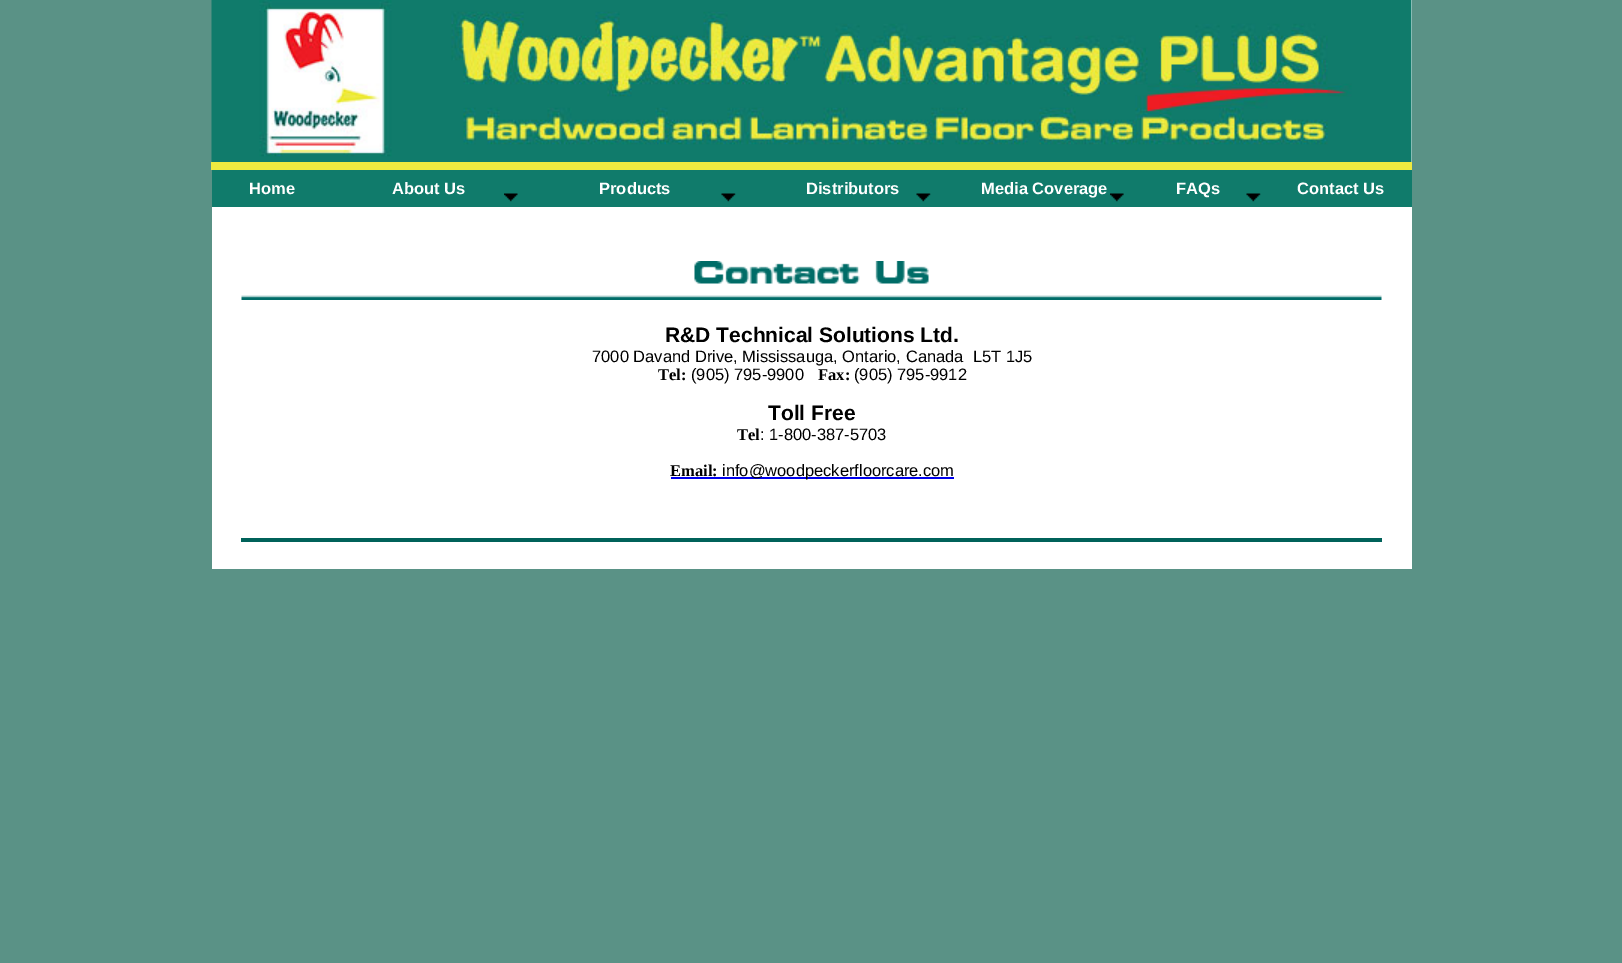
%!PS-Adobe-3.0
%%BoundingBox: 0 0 1622 963
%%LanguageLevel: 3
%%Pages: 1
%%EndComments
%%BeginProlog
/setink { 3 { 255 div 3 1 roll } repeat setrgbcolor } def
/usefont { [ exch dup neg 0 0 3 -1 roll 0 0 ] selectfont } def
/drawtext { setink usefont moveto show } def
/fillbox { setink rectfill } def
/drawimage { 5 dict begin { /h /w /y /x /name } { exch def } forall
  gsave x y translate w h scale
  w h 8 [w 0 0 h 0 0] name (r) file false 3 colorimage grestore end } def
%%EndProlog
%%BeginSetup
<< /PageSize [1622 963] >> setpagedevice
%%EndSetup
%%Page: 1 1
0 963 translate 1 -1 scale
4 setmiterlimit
0 0 1622 963 90 146 134 fillbox
212 0 1200 569 255 255 255 fillbox
(assets/img1.rgb) 211 0 1201 162 drawimage
211 162 1201 8 239 234 64 fillbox
212 170 1200 37 16 123 107 fillbox
(Home) 249 194 /LiberationSans-Bold 16.5 255 255 255 drawtext
(About Us) 392 194 /LiberationSans-Bold 16.5 255 255 255 drawtext
(assets/img2.rgb) 504 193 14 9 drawimage
(Products) 599 194 /LiberationSans-Bold 16.5 255 255 255 drawtext
(assets/img3.rgb) 721 193 15 9 drawimage
(Distributors) 806 194 /LiberationSans-Bold 16.5 255 255 255 drawtext
(assets/img4.rgb) 916 193 15 9 drawimage
(Media Coverage) 981 194 /LiberationSans-Bold 16.5 255 255 255 drawtext
(assets/img5.rgb) 1110 193 14 9 drawimage
(FAQs) 1176 194 /LiberationSans-Bold 16.5 255 255 255 drawtext
(assets/img4.rgb) 1246 193 15 9 drawimage
(Contact Us) 1297 194 /LiberationSans-Bold 16.5 255 255 255 drawtext
(assets/img6.rgb) 241 261 1141 39 drawimage
(R&D Technical Solutions Ltd.) 665 342 /LiberationSans-Bold 21 0 0 0 drawtext
(7000 Davand Drive, Mississauga, Ontario, Canada  L5T 1J5) 592 362 /LiberationSans-Regular 16.5 0 0 0 drawtext
(Tel:) 658 380 /LiberationSerif-Bold 16.5 0 0 0 drawtext
(\(905\) 795-9900) 691 380 /LiberationSans-Regular 16.5 0 0 0 drawtext
(Fax:) 818 380 /LiberationSerif-Bold 16.5 0 0 0 drawtext
(\(905\) 795-9912) 854 380 /LiberationSans-Regular 16.5 0 0 0 drawtext
(Toll Free) 768 420 /LiberationSans-Bold 21 0 0 0 drawtext
(Tel) 737 440 /LiberationSerif-Bold 16.5 0 0 0 drawtext
(: 1-800-387-5703) 760 440 /LiberationSans-Regular 16.5 0 0 0 drawtext
(Email:) 670 476 /LiberationSerif-Bold 16.5 0 0 0 drawtext
671 477 283 2 0 0 238 fillbox
(info@woodpeckerfloorcare.com) 722 476 /LiberationSans-Regular 16.5 0 0 0 drawtext
241 538 1141 4 0 98 90 fillbox
showpage
%%EOF
